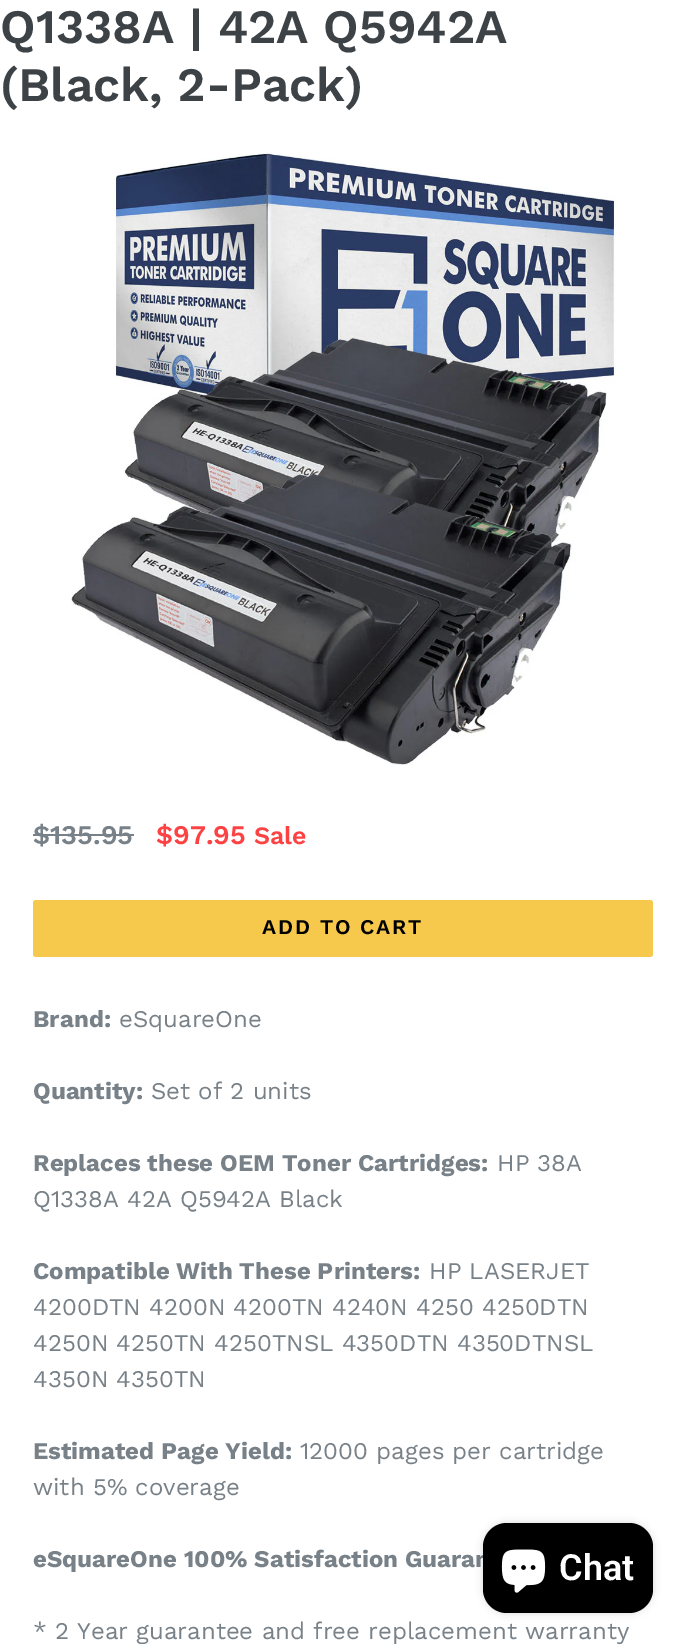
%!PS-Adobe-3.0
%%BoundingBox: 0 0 685 1644
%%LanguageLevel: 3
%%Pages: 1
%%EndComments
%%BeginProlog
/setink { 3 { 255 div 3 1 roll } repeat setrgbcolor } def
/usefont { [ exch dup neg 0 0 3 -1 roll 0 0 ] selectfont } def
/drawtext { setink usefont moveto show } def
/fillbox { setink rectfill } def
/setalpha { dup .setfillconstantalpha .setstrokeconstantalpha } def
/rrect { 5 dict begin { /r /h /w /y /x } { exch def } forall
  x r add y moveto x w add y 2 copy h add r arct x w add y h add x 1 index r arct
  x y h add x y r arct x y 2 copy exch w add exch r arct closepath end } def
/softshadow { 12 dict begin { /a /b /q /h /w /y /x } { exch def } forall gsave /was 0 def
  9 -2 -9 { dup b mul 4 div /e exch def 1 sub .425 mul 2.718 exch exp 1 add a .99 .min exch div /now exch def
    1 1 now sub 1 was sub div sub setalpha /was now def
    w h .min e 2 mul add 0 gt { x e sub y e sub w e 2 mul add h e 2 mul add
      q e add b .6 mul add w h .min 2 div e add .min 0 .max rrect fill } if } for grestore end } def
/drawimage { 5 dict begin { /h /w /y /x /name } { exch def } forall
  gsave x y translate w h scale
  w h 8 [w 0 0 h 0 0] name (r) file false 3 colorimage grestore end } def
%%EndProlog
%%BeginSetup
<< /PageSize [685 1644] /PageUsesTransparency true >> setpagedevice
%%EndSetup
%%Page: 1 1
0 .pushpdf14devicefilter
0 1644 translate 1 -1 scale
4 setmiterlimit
0 0 685 1644 255 255 255 fillbox
(Q1338A | 42A Q5942A) 0 43 /WorkSans-SemiBold 48 61 66 70 drawtext
(\(Black, 2-Pack\)) 0 101 /WorkSans-SemiBold 48 61 66 70 drawtext
(assets/img1.rgb) 71 152 545 613 drawimage
($135.95) 33 844 /WorkSans-SemiBold 27 120 129 136 drawtext
33 834 101 2 120 129 136 fillbox
($97.95) 156 844 /WorkSans-SemiBold 27 252 66 66 drawtext
(Sale) 254 844 /WorkSans-SemiBold 25 252 66 66 drawtext
246 201 77 setink
33 900 620 57 3 rrect fill
/WorkSans-SemiBold 21 usefont
0 0 0 setink
262 934 moveto 1.75 0 (ADD TO CART) ashow
(Brand:) 33 1027 /WorkSans-Bold 24 120 129 136 drawtext
(eSquareOne) 119 1027 /WorkSans-Regular 24 120 129 136 drawtext
(Quantity:) 33 1099 /WorkSans-Bold 24 120 129 136 drawtext
(Set of 2 units) 151 1099 /WorkSans-Regular 24 120 129 136 drawtext
(Replaces these OEM Toner Cartridges:) 33 1171 /WorkSans-Bold 24 120 129 136 drawtext
(HP 38A) 497 1171 /WorkSans-Regular 24 120 129 136 drawtext
(Q1338A 42A Q5942A Black) 33 1207 /WorkSans-Regular 24 120 129 136 drawtext
(Compatible With These Printers:) 33 1279 /WorkSans-Bold 24 120 129 136 drawtext
(HP LASERJET) 429 1279 /WorkSans-Regular 24 120 129 136 drawtext
(4200DTN 4200N 4200TN 4240N 4250 4250DTN) 33 1315 /WorkSans-Regular 24 120 129 136 drawtext
(4250N 4250TN 4250TNSL 4350DTN 4350DTNSL) 33 1351 /WorkSans-Regular 24 120 129 136 drawtext
(4350N 4350TN) 33 1387 /WorkSans-Regular 24 120 129 136 drawtext
(Estimated Page Yield:) 33 1459 /WorkSans-Bold 24 120 129 136 drawtext
(12000 pages per cartridge) 300 1459 /WorkSans-Regular 24 120 129 136 drawtext
(with 5% coverage) 33 1495 /WorkSans-Regular 24 120 129 136 drawtext
(eSquareOne 100% Satisfaction Guaran) 33 1567 /WorkSans-Bold 24 120 129 136 drawtext
(* 2 Year guarantee and free replacement warranty) 33 1639 /WorkSans-Regular 24 120 129 136 drawtext
0 0 0 setink
483 1523 170 90 24 4 0.15 softshadow
483 1523 170 90 24 rrect fill
(assets/img2.rgb) 501 1549 45 44 drawimage
(Chat) 559 1580 /Roboto-SemiBold 36 255 255 255 drawtext
.poppdf14devicefilter showpage
%%EOF
